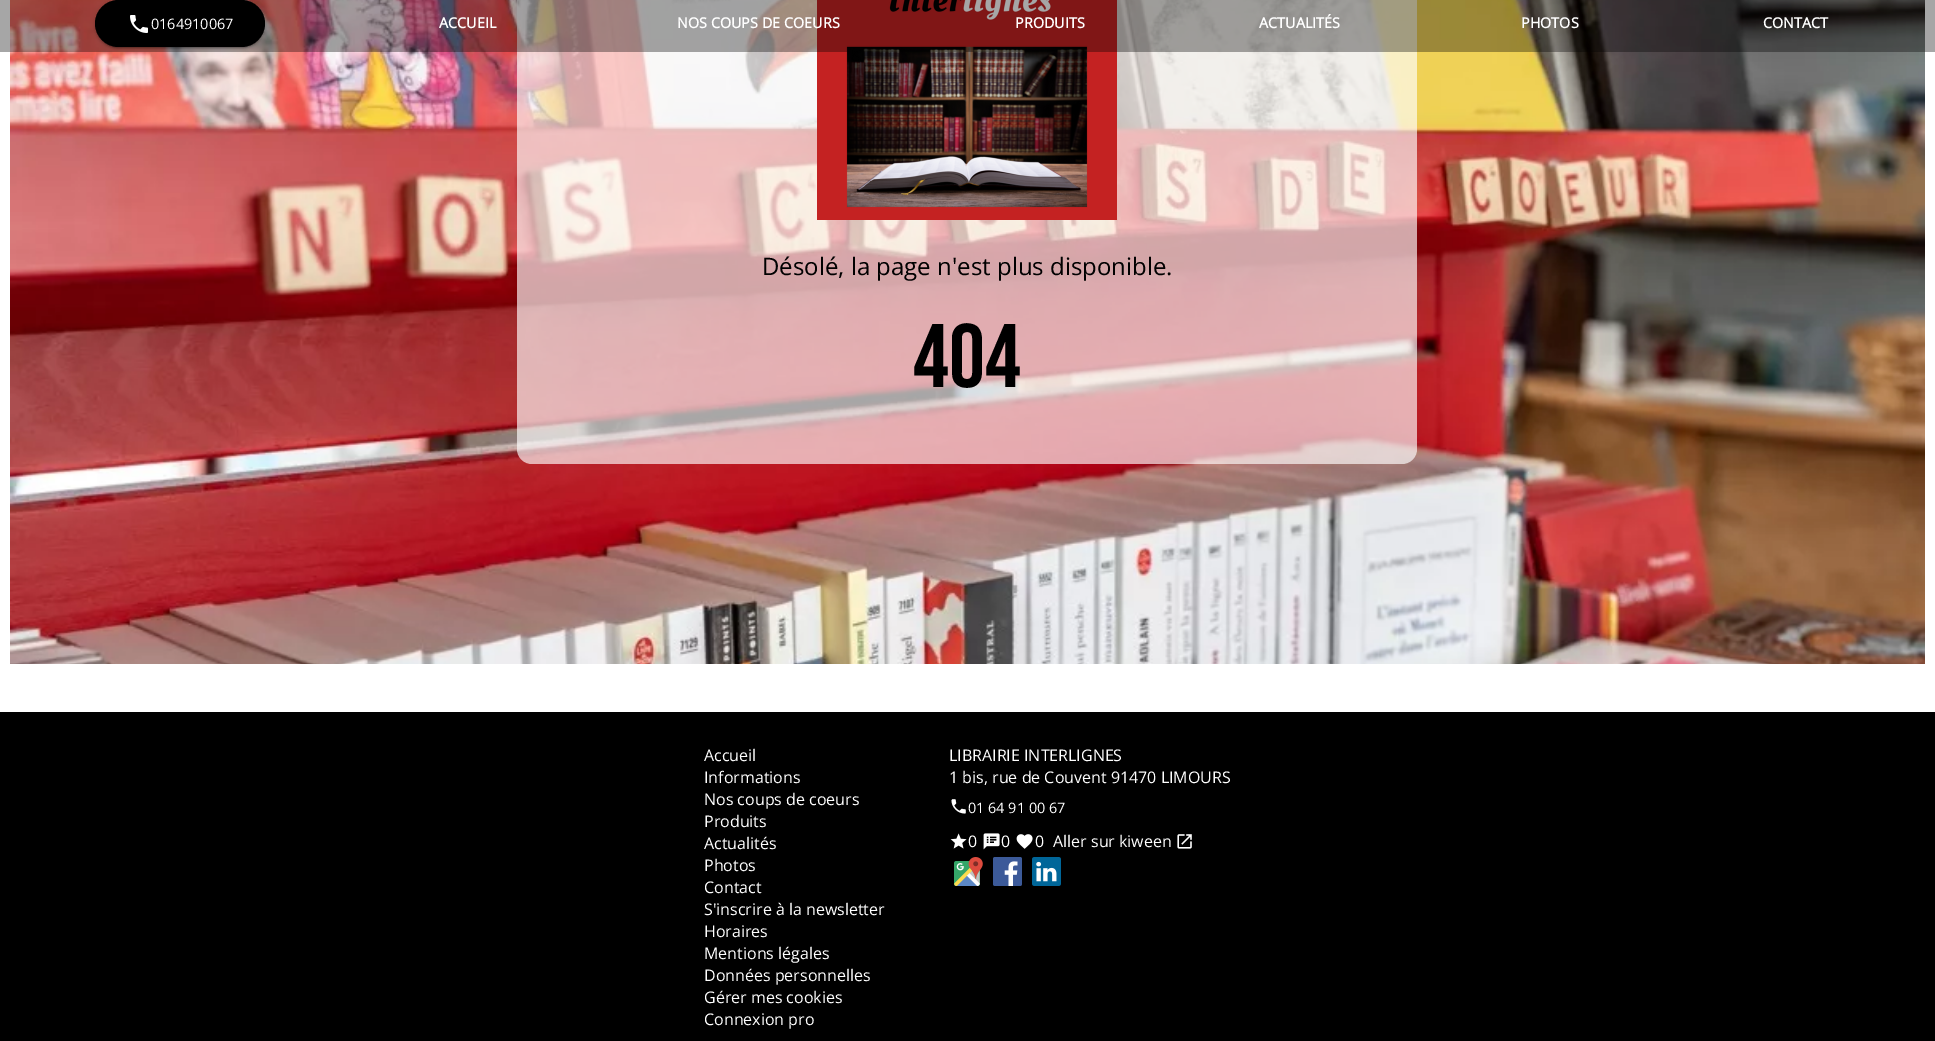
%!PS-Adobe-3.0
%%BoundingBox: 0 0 1935 1041
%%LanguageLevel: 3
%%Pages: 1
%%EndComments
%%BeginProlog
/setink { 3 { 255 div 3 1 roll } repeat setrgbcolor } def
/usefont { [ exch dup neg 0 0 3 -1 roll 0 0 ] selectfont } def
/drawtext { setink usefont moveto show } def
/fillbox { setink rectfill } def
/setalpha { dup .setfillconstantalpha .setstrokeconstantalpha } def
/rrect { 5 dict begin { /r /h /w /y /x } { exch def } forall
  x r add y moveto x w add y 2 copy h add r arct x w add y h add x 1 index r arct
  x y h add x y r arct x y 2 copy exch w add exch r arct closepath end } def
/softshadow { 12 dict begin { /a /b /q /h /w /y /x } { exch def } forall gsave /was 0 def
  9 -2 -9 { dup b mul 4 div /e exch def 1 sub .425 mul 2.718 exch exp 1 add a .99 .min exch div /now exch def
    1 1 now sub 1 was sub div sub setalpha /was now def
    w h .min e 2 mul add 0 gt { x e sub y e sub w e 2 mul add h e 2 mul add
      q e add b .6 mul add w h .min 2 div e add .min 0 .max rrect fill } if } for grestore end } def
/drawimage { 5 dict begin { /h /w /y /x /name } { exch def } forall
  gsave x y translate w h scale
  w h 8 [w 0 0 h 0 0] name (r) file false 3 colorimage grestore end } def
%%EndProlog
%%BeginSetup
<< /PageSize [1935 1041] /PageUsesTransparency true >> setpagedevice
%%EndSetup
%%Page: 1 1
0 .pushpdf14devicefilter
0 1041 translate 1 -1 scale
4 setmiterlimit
0 0 1935 1041 255 255 255 fillbox
(assets/img2.rgb) 10 0 1915 664 drawimage
0.65 setalpha
517 -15 900 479 15 rrect fill
1 setalpha
(assets/img3.rgb) 817 0 300 220 drawimage
0.35 setalpha
0 0 1935 52 0 0 0 fillbox
1 setalpha
95 1 170 47 23.5 2.5 0.12 softshadow
95 2 170 47 23.5 1 0.14 softshadow
97 5 166 43 21.5 0.5 0.2 softshadow
95 0 170 47 23.5 rrect fill
(assets/img1.rgb) 130 15 18 18 drawimage
(0164910067) 151 29 /OpenSans-Regular 14.4 255 255 255 drawtext
(ACCUEIL) 439 28 /OpenSans-Bold 14.4 255 255 255 drawtext
(NOS COUPS DE COEURS) 677 28 /OpenSans-Bold 14.4 255 255 255 drawtext
(PRODUITS) 1015 28 /OpenSans-Bold 14.4 255 255 255 drawtext
(ACTUALITÉS) 1259 28 /OpenSans-Bold 14.4 255 255 255 drawtext
(PHOTOS) 1521 28 /OpenSans-Bold 14.4 255 255 255 drawtext
(CONTACT) 1763 28 /OpenSans-Bold 14.4 255 255 255 drawtext
(Désolé, la page n'est plus disponible.) 762 275 /OpenSans-Regular 24 0 0 0 drawtext
(404) 913 387 /BebasNeue-Regular 90 0 0 0 drawtext
0 712 1935 329 0 0 0 fillbox
(Accueil) 704 761 /OpenSans-Regular 16 255 255 255 drawtext
(Informations) 704 783 /OpenSans-Regular 16 255 255 255 drawtext
(Nos coups de coeurs) 704 805 /OpenSans-Regular 16 255 255 255 drawtext
(Produits) 704 827 /OpenSans-Regular 16 255 255 255 drawtext
(Actualités) 704 849 /OpenSans-Regular 16 255 255 255 drawtext
(Photos) 704 871 /OpenSans-Regular 16 255 255 255 drawtext
(Contact) 704 893 /OpenSans-Regular 16 255 255 255 drawtext
(S'inscrire à la newsletter) 704 915 /OpenSans-Regular 16 255 255 255 drawtext
(Horaires) 704 937 /OpenSans-Regular 16 255 255 255 drawtext
(Mentions légales) 704 959 /OpenSans-Regular 16 255 255 255 drawtext
(Données personnelles) 704 981 /OpenSans-Regular 16 255 255 255 drawtext
(Gérer mes cookies) 704 1003 /OpenSans-Regular 16 255 255 255 drawtext
(Connexion pro) 704 1025 /OpenSans-Regular 16 255 255 255 drawtext
(LIBRAIRIE INTERLIGNES) 949 761 /OpenSans-Regular 16 255 255 255 drawtext
(1 bis, rue de Couvent 91470 LIMOURS) 949 783 /OpenSans-Regular 16 255 255 255 drawtext
(assets/img4.rgb) 951 799 15 15 drawimage
gsave
949 796 116 21 10.5 rrect clip newpath
(01 64 91 00 67) 968 813 /OpenSans-Regular 14.4 255 255 255 drawtext
grestore
(assets/img5.rgb) 950 833 17 16 drawimage
(0) 968 847 /OpenSans-Regular 16 255 255 255 drawtext
(assets/img6.rgb) 983 833 17 17 drawimage
(0) 1001 847 /OpenSans-Regular 16 255 255 255 drawtext
(assets/img7.rgb) 1016 834 17 15 drawimage
(0) 1035 847 /OpenSans-Regular 16 255 255 255 drawtext
(Aller sur kiween) 1053 847 /OpenSans-Regular 16 255 255 255 drawtext
(assets/img8.rgb) 1177 834 15 15 drawimage
(assets/img9.rgb) 954 857 29 29 drawimage
(assets/img10.rgb) 993 857 29 29 drawimage
(assets/img11.rgb) 1032 857 29 29 drawimage
.poppdf14devicefilter showpage
%%EOF
